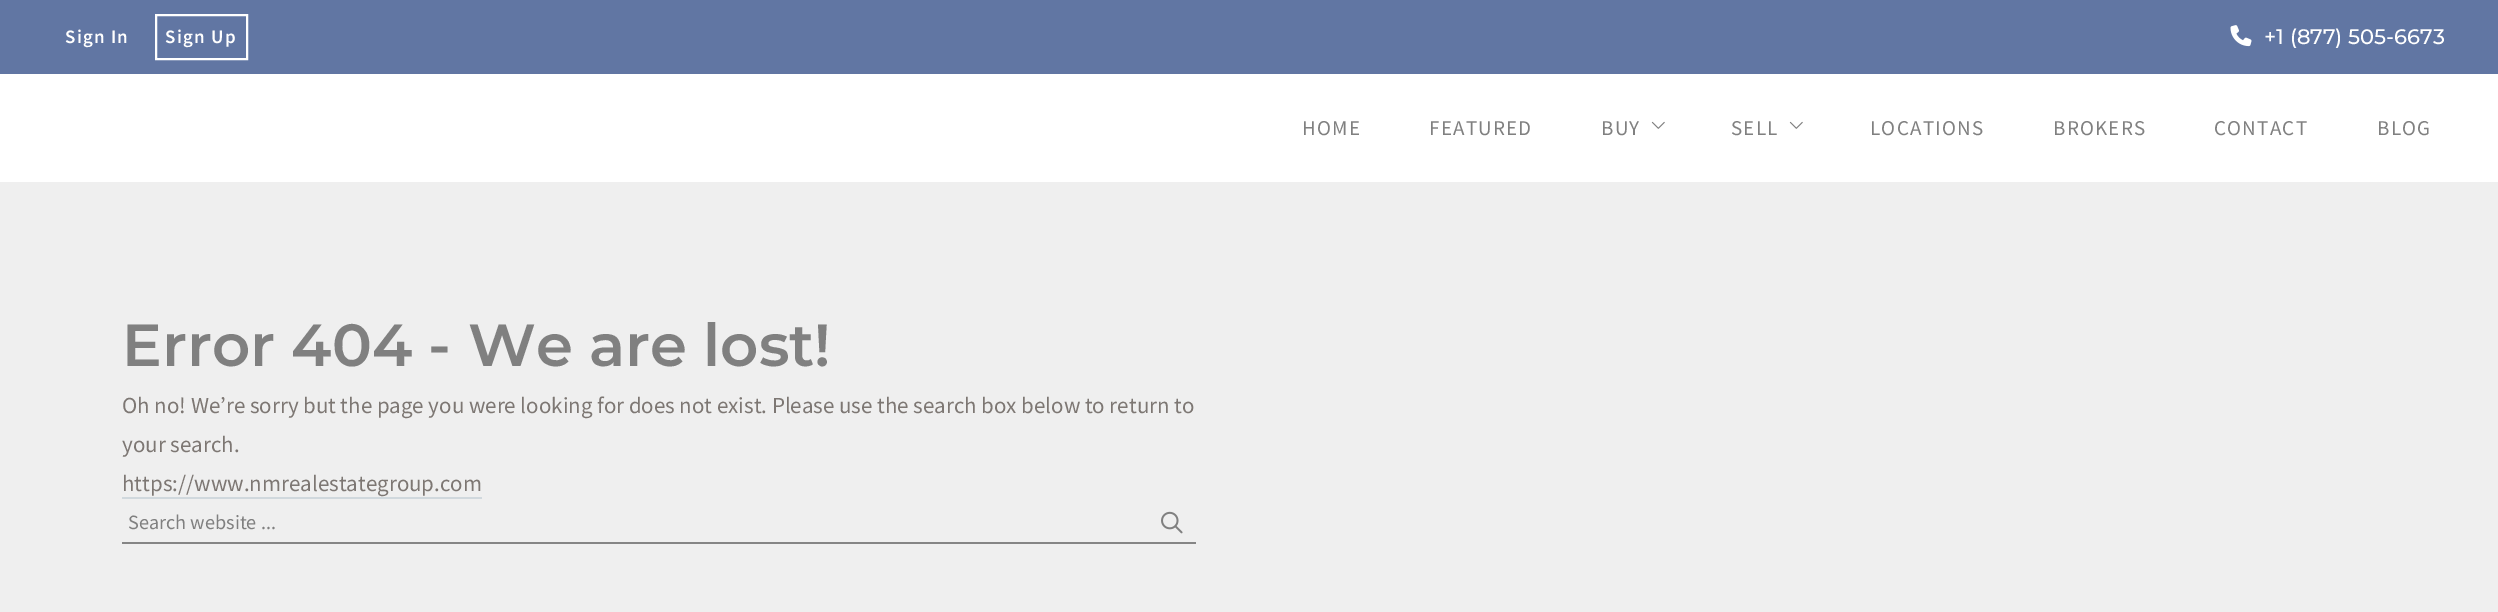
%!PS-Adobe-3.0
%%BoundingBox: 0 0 2498 612
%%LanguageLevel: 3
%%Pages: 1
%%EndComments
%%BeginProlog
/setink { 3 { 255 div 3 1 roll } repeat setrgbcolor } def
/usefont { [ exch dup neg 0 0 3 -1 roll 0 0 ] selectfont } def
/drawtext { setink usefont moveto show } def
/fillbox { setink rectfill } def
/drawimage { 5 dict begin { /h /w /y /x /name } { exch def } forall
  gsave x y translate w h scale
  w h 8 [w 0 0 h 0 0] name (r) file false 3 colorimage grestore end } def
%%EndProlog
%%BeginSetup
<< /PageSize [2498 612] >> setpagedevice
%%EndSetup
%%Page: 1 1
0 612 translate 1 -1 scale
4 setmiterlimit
0 0 2498 612 255 255 255 fillbox
0 0 2498 74 97 118 163 fillbox
/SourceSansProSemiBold-SemiBold 19 usefont
255 255 255 setink
65 43 moveto 1.25 0 (Sign In) ashow
2 setlinewidth
156 15 91 44 rectstroke
165 43 moveto 1.25 0 (Sign Up) ashow
(assets/img1.rgb) 2230 25 22 22 drawimage
(+1 \(877\) 505-6673) 2264 44 /Montserrat-Medium 21 255 255 255 drawtext
/SourceSansPro-Regular 21 usefont
128 128 128 setink
1302 135 moveto 1.25 0 (HOME) ashow
1429 135 moveto 1.25 0 (FEATURED) ashow
1601 135 moveto 1.25 0 (BUY) ashow
(assets/img2.rgb) 1651 121 14 8 drawimage
1731 135 moveto 1.25 0 (SELL) ashow
(assets/img2.rgb) 1789 121 14 8 drawimage
1870 135 moveto 1.25 0 (LOCATIONS) ashow
2053 135 moveto 1.25 0 (BROKERS) ashow
2214 135 moveto 1.25 0 (CONTACT) ashow
2377 135 moveto 1.25 0 (BLOG) ashow
0 182 2498 430 239 239 239 fillbox
(Error 404 - We are lost!) 122 366 /Montserrat-SemiBold 59.4 128 128 128 drawtext
(Oh no! We’re sorry but the page you were looking for does not exist. Please use the search box below to return to) 122 413 /SourceSansPro-Regular 22.95 125 119 115 drawtext
(your search.) 122 452 /SourceSansPro-Regular 22.95 125 119 115 drawtext
(https://www.nmrealestategroup.com) 122 491 /SourceSansPro-Regular 22.95 125 119 115 drawtext
122 497 360 2 208 216 221 fillbox
122 542 1074 2 133 133 133 fillbox
(Search website ...) 128 529 /SourceSansPro-Regular 20.25 128 128 128 drawtext
(assets/img3.rgb) 1161 511 22 23 drawimage
showpage
%%EOF
